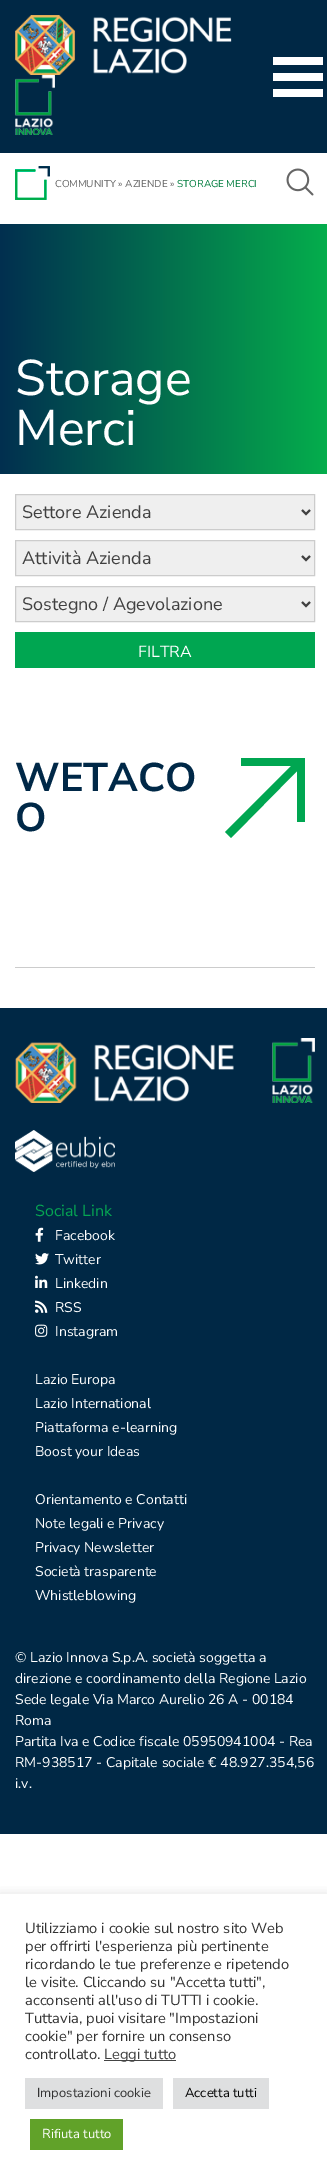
%!PS-Adobe-3.0
%%BoundingBox: 0 0 327 2180
%%LanguageLevel: 3
%%Pages: 1
%%EndComments
%%BeginProlog
/setink { 3 { 255 div 3 1 roll } repeat setrgbcolor } def
/usefont { [ exch dup neg 0 0 3 -1 roll 0 0 ] selectfont } def
/drawtext { setink usefont moveto show } def
/fillbox { setink rectfill } def
/setalpha { dup .setfillconstantalpha .setstrokeconstantalpha } def
/rrect { 5 dict begin { /r /h /w /y /x } { exch def } forall
  x r add y moveto x w add y 2 copy h add r arct x w add y h add x 1 index r arct
  x y h add x y r arct x y 2 copy exch w add exch r arct closepath end } def
/softshadow { 12 dict begin { /a /b /q /h /w /y /x } { exch def } forall gsave /was 0 def
  9 -2 -9 { dup b mul 4 div /e exch def 1 sub .425 mul 2.718 exch exp 1 add a .99 .min exch div /now exch def
    1 1 now sub 1 was sub div sub setalpha /was now def
    w h .min e 2 mul add 0 gt { x e sub y e sub w e 2 mul add h e 2 mul add
      q e add b .6 mul add w h .min 2 div e add .min 0 .max rrect fill } if } for grestore end } def
/drawimage { 5 dict begin { /h /w /y /x /name } { exch def } forall
  gsave x y translate w h scale
  w h 8 [w 0 0 h 0 0] name (r) file false 3 colorimage grestore end } def
%%EndProlog
%%BeginSetup
<< /PageSize [327 2180] /PageUsesTransparency true >> setpagedevice
%%EndSetup
%%Page: 1 1
0 .pushpdf14devicefilter
0 2180 translate 1 -1 scale
4 setmiterlimit
0 0 327 2180 255 255 255 fillbox
0 0 327 153 0 40 69 fillbox
(assets/img1.rgb) 15 15 217 60 drawimage
(assets/img2.rgb) 15 75 40 60 drawimage
(assets/img3.rgb) 273 57 50 40 drawimage
(assets/img4.rgb) 15 166 35 34 drawimage
(COMMUNITY » AZIENDE ») 55 187 /NunitoSans-Regular 10 102 102 102 drawtext
(STORAGE MERCI) 177 187 /NunitoSans-Regular 10 0 124 61 drawtext
(assets/img5.rgb) 286 168 28 28 drawimage
gsave 0 224 moveto 327 224 lineto 327 474 lineto 0 474 lineto closepath clip newpath
<< /ShadingType 2 /ColorSpace /DeviceRGB /Coords [0 349 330 349] /Extend [true true] /Function << /FunctionType 2 /Domain [0 1] /C0 [0.004 0.184 0.314] /C1 [0.02 0.686 0.298] /N 1 >> >> shfill grestore
(Storage) 15 395 /NunitoSans-Regular 50 255 255 255 drawtext
(Merci) 15 445 /NunitoSans-Regular 50 255 255 255 drawtext
239 239 239 setink
15.5 494.5 moveto 314.5 494.5 lineto 314.5 529.5 lineto 15.5 529.5 lineto closepath gsave fill grestore
204 204 204 setink
stroke
64 64 64 setink
2 setlinewidth
302 510 moveto 306 514 lineto 310 510 lineto stroke
(Settore Azienda) 22 518 /NunitoSans-Regular 18 64 64 64 drawtext
239 239 239 setink
15.5 540.5 moveto 314.5 540.5 lineto 314.5 575.5 lineto 15.5 575.5 lineto closepath gsave fill grestore
204 204 204 setink
1 setlinewidth
stroke
64 64 64 setink
2 setlinewidth
302 556 moveto 306 560 lineto 310 556 lineto stroke
(Attività Azienda) 22 564 /NunitoSans-Regular 18 64 64 64 drawtext
239 239 239 setink
15.5 586.5 moveto 314.5 586.5 lineto 314.5 621.5 lineto 15.5 621.5 lineto closepath gsave fill grestore
204 204 204 setink
1 setlinewidth
stroke
64 64 64 setink
2 setlinewidth
302 602 moveto 306 606 lineto 310 602 lineto stroke
(Sostegno / Agevolazione) 22 610 /NunitoSans-Regular 18 64 64 64 drawtext
15 632 300 36 0 166 81 fillbox
(FILTRA) 138 657 /NunitoSans-Regular 16 255 255 255 drawtext
15 967 300 1 204 204 204 fillbox
(WETACO) 15 791 /NunitoSans-Bold 40 0 40 71 drawtext
(O) 15 831 /NunitoSans-Bold 40 0 40 71 drawtext
0 166 81 setink
305 758 moveto 241 758 lineto 241 766 lineto 291 766 lineto 225 832 lineto 231 838 lineto 297 771 lineto 297 822 lineto 305 822 lineto closepath fill
0 1008 327 826 0 40 69 fillbox
(assets/img6.rgb) 15 1038 300 65 drawimage
(assets/img7.rgb) 15 1130 100 42 drawimage
(Social Link) 35 1216 /NunitoSans-Regular 16 5 165 82 drawtext
(assets/img8.rgb) 35 1227 9 15 drawimage
(Facebook) 55 1240 /NunitoSans-Regular 14 255 255 255 drawtext
(assets/img9.rgb) 35 1253 14 12 drawimage
(Twitter) 55 1264 /NunitoSans-Regular 14 255 255 255 drawtext
(assets/img10.rgb) 35 1275 13 13 drawimage
(Linkedin) 55 1288 /NunitoSans-Regular 14 255 255 255 drawtext
(assets/img11.rgb) 35 1300 13 13 drawimage
(RSS) 55 1312 /NunitoSans-Regular 14 255 255 255 drawtext
(assets/img12.rgb) 35 1324 13 13 drawimage
(Instagram) 55 1336 /NunitoSans-Regular 14 255 255 255 drawtext
(Lazio Europa) 35 1384 /NunitoSans-Regular 14 255 255 255 drawtext
(Lazio International) 35 1408 /NunitoSans-Regular 14 255 255 255 drawtext
(Piattaforma e-learning) 35 1432 /NunitoSans-Regular 14 255 255 255 drawtext
(Boost your Ideas) 35 1456 /NunitoSans-Regular 14 255 255 255 drawtext
(Orientamento e Contatti) 35 1504 /NunitoSans-Regular 14 255 255 255 drawtext
(Note legali e Privacy) 35 1528 /NunitoSans-Regular 14 255 255 255 drawtext
(Privacy Newsletter) 35 1552 /NunitoSans-Regular 14 255 255 255 drawtext
(Società trasparente) 35 1576 /NunitoSans-Regular 14 255 255 255 drawtext
(Whistleblowing) 35 1600 /NunitoSans-Regular 14 255 255 255 drawtext
(© Lazio Innova S.p.A. società soggetta a) 15 1662 /NunitoSans-Regular 14 255 255 255 drawtext
(direzione e coordinamento della Regione Lazio) 15 1683 /NunitoSans-Regular 14 255 255 255 drawtext
(Sede legale Via Marco Aurelio 26 A - 00184) 15 1704 /NunitoSans-Regular 14 255 255 255 drawtext
(Roma) 15 1725 /NunitoSans-Regular 14 255 255 255 drawtext
(Partita Iva e Codice fiscale 05950941004 - Rea) 15 1746 /NunitoSans-Regular 14 255 255 255 drawtext
(RM-938517 - Capitale sociale € 48.927.354,56) 15 1767 /NunitoSans-Regular 14 255 255 255 drawtext
(i.v.) 15 1788 /NunitoSans-Regular 14 255 255 255 drawtext
gsave
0 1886 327 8 rectclip
172 171 171 setink
0 1893 327 286 0 5 0.3 softshadow
grestore
(Utilizziamo i cookie sul nostro sito Web) 25 1933 /NunitoSans-Regular 14.7 51 51 51 drawtext
(per offrirti l'esperienza più pertinente) 25 1951 /NunitoSans-Regular 14.7 51 51 51 drawtext
(ricordando le tue preferenze e ripetendo) 25 1969 /NunitoSans-Regular 14.7 51 51 51 drawtext
(le visite. Cliccando su "Accetta tutti",) 25 1987 /NunitoSans-Regular 14.7 51 51 51 drawtext
(acconsenti all'uso di TUTTI i cookie.) 25 2005 /NunitoSans-Regular 14.7 51 51 51 drawtext
(Tuttavia, puoi visitare "Impostazioni) 25 2023 /NunitoSans-Regular 14.7 51 51 51 drawtext
(cookie" per fornire un consenso) 25 2041 /NunitoSans-Regular 14.7 51 51 51 drawtext
(controllato.) 25 2059 /NunitoSans-Regular 14.7 51 51 51 drawtext
104 2060 72 1 68 68 68 fillbox
(Leggi tutto) 104 2059 /NunitoSans-Regular 14.7 64 64 64 drawtext
25 2078 138 31 222 223 224 fillbox
(Impostazioni cookie) 37 2097 /NunitoSans-Regular 13 51 51 51 drawtext
173 2078 96 31 222 223 224 fillbox
(Accetta tutti) 185 2097 /NunitoSans-Regular 13 0 0 0 drawtext
30 2119 93 31 97 162 41 fillbox
(Rifiuta tutto) 42 2138 /NunitoSans-Regular 13 255 255 255 drawtext
.poppdf14devicefilter showpage
%%EOF
